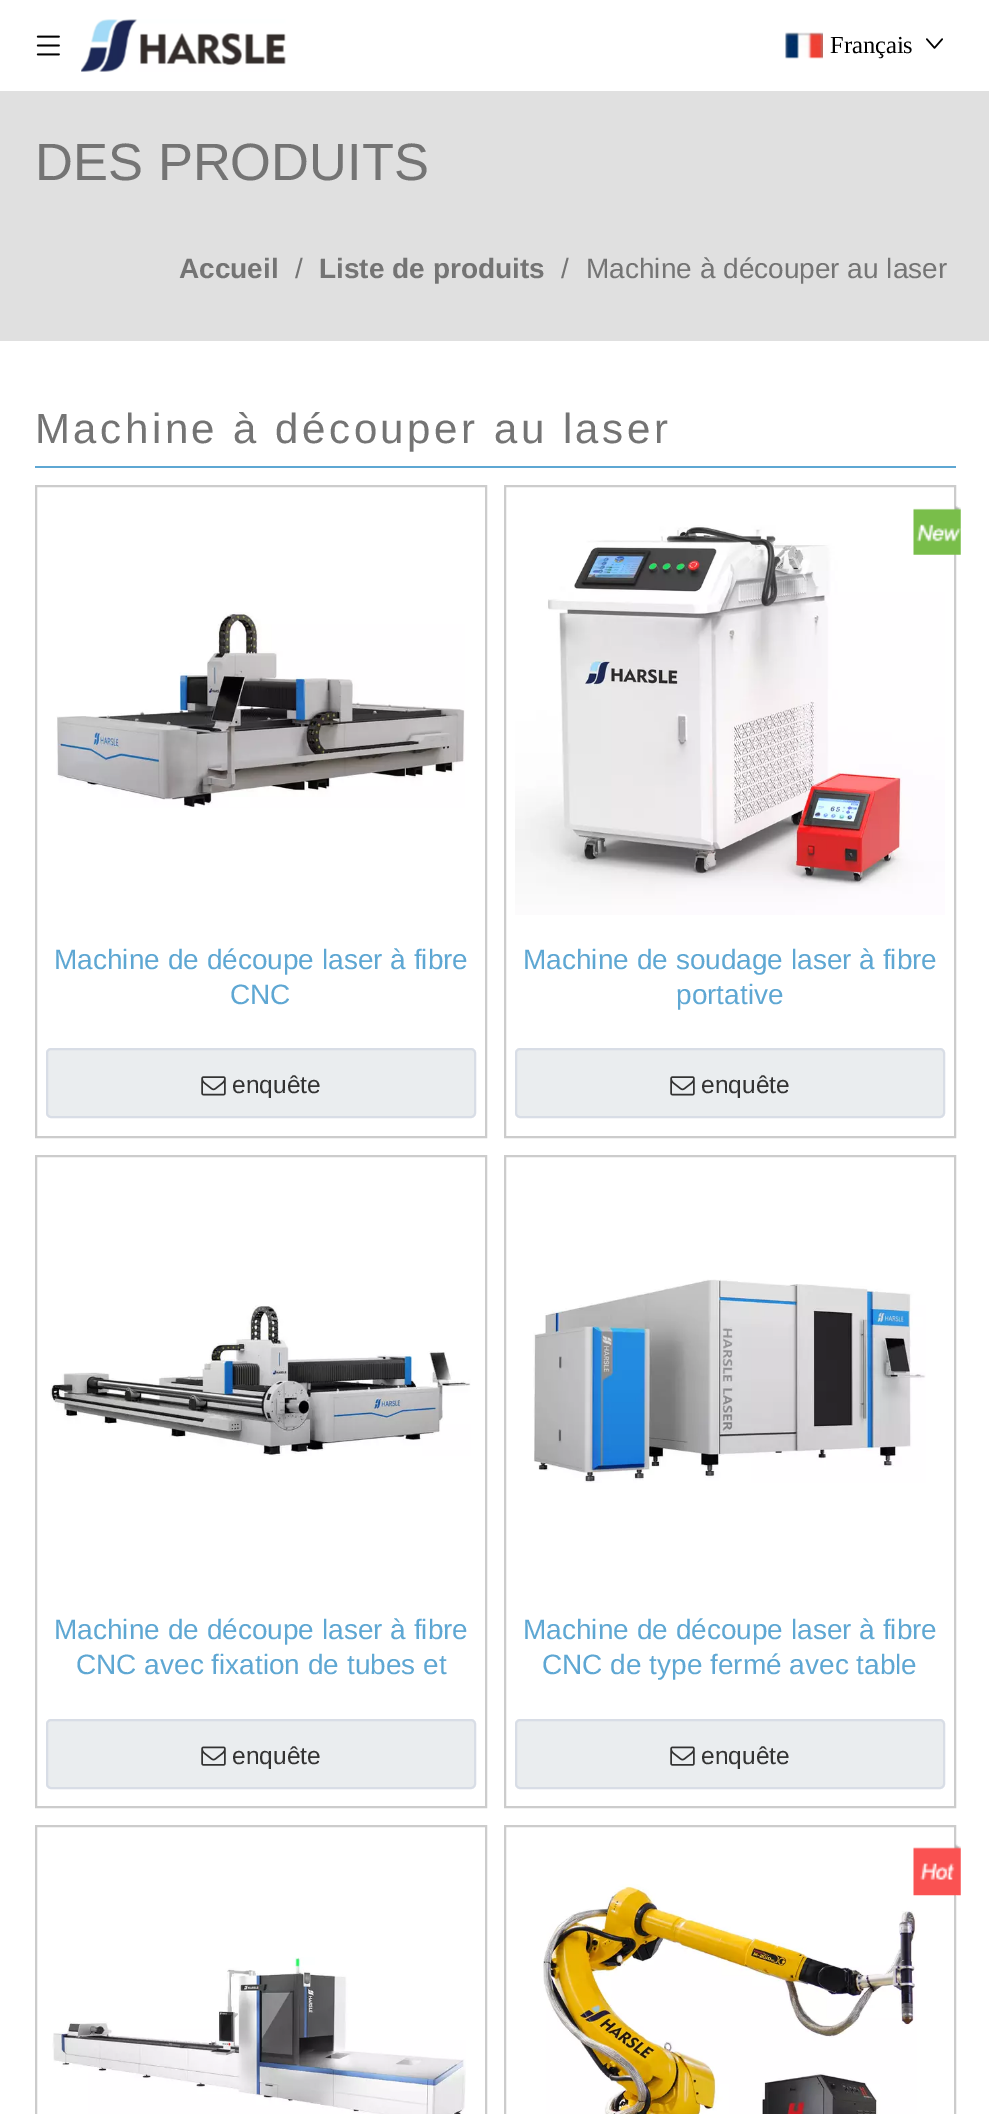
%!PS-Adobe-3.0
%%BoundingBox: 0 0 989 2114
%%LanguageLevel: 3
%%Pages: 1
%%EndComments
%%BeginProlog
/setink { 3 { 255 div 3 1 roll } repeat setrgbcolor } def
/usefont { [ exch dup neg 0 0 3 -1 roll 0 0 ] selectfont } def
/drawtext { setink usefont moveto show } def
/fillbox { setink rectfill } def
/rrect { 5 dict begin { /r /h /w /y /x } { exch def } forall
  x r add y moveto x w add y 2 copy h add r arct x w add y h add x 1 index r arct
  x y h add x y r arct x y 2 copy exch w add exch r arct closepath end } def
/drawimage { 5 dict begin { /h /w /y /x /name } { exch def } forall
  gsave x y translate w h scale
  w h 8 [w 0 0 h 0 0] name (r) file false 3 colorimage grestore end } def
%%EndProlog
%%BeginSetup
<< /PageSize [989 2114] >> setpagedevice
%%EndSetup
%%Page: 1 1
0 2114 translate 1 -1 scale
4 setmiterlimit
0 0 989 2114 255 255 255 fillbox
(assets/img1.rgb) 36 35 24 21 drawimage
(assets/img2.rgb) 81 19 205 53 drawimage
(assets/img3.rgb) 785 32 38 27 drawimage
(Français) 830 53 /LiberationSerif-Regular 24.5 0 0 0 drawtext
(assets/img4.rgb) 926 38 17 11 drawimage
0 91 989 250 224 224 224 fillbox
(DES PRODUITS) 35 180 /LiberationSans-Regular 52.5 116 116 116 drawtext
(Accueil) 179 278 /LiberationSans-Bold 28 116 116 116 drawtext
(/) 295 278 /LiberationSans-Regular 28 116 116 116 drawtext
(Liste de produits) 319 278 /LiberationSans-Bold 28 116 116 116 drawtext
(/) 561 278 /LiberationSans-Regular 28 116 116 116 drawtext
(Machine à découper au laser) 586 278 /LiberationSans-Regular 28 116 116 116 drawtext
35 466 921 2 94 167 211 fillbox
/LiberationSans-Regular 42 usefont
116 116 116 setink
35 443 moveto 3.5 0 (Machine à découper au laser) ashow
204 204 204 setink
2 setlinewidth
36 486 450 651 rectstroke
(assets/img5.rgb) 56 612 409 196 drawimage
(Machine de découpe laser à fibre) 54 969 /LiberationSans-Regular 28 94 167 211 drawtext
(CNC) 230 1004 /LiberationSans-Regular 28 94 167 211 drawtext
234 237 239 setink
47 1049 428 68 4 rrect gsave fill grestore
216 221 230 setink
stroke
(assets/img6.rgb) 201 1076 25 20 drawimage
(enquête) 232 1093 /LiberationSans-Regular 24.5 51 51 51 drawtext
204 204 204 setink
505 486 450 651 rectstroke
(assets/img8.rgb) 515 525 430 390 drawimage
(assets/img7.rgb) 913 505 48 50 drawimage
(Machine de soudage laser à fibre) 523 969 /LiberationSans-Regular 28 94 167 211 drawtext
(portative) 676 1004 /LiberationSans-Regular 28 94 167 211 drawtext
234 237 239 setink
516 1049 428 68 4 rrect gsave fill grestore
216 221 230 setink
stroke
(assets/img6.rgb) 670 1076 25 20 drawimage
(enquête) 701 1093 /LiberationSans-Regular 24.5 51 51 51 drawtext
204 204 204 setink
36 1156 450 651 rectstroke
(assets/img9.rgb) 50 1305 421 151 drawimage
(Machine de découpe laser à fibre) 54 1639 /LiberationSans-Regular 28 94 167 211 drawtext
(CNC avec fixation de tubes et) 76 1674 /LiberationSans-Regular 28 94 167 211 drawtext
234 237 239 setink
47 1720 428 68 4 rrect gsave fill grestore
216 221 230 setink
stroke
(assets/img10.rgb) 201 1746 25 20 drawimage
(enquête) 232 1764 /LiberationSans-Regular 24.5 51 51 51 drawtext
204 204 204 setink
505 1156 450 651 rectstroke
(assets/img11.rgb) 533 1279 393 204 drawimage
(Machine de découpe laser à fibre) 523 1639 /LiberationSans-Regular 28 94 167 211 drawtext
(CNC de type fermé avec table) 542 1674 /LiberationSans-Regular 28 94 167 211 drawtext
234 237 239 setink
516 1720 428 68 4 rrect gsave fill grestore
216 221 230 setink
stroke
(assets/img10.rgb) 670 1746 25 20 drawimage
(enquête) 701 1764 /LiberationSans-Regular 24.5 51 51 51 drawtext
204 204 204 setink
36 1826 450 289 rectstroke
(assets/img12.rgb) 52 1957 414 157 drawimage
505 1826 450 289 rectstroke
(assets/img14.rgb) 543 1884 374 230 drawimage
(assets/img13.rgb) 913 1844 48 52 drawimage
showpage
%%EOF
